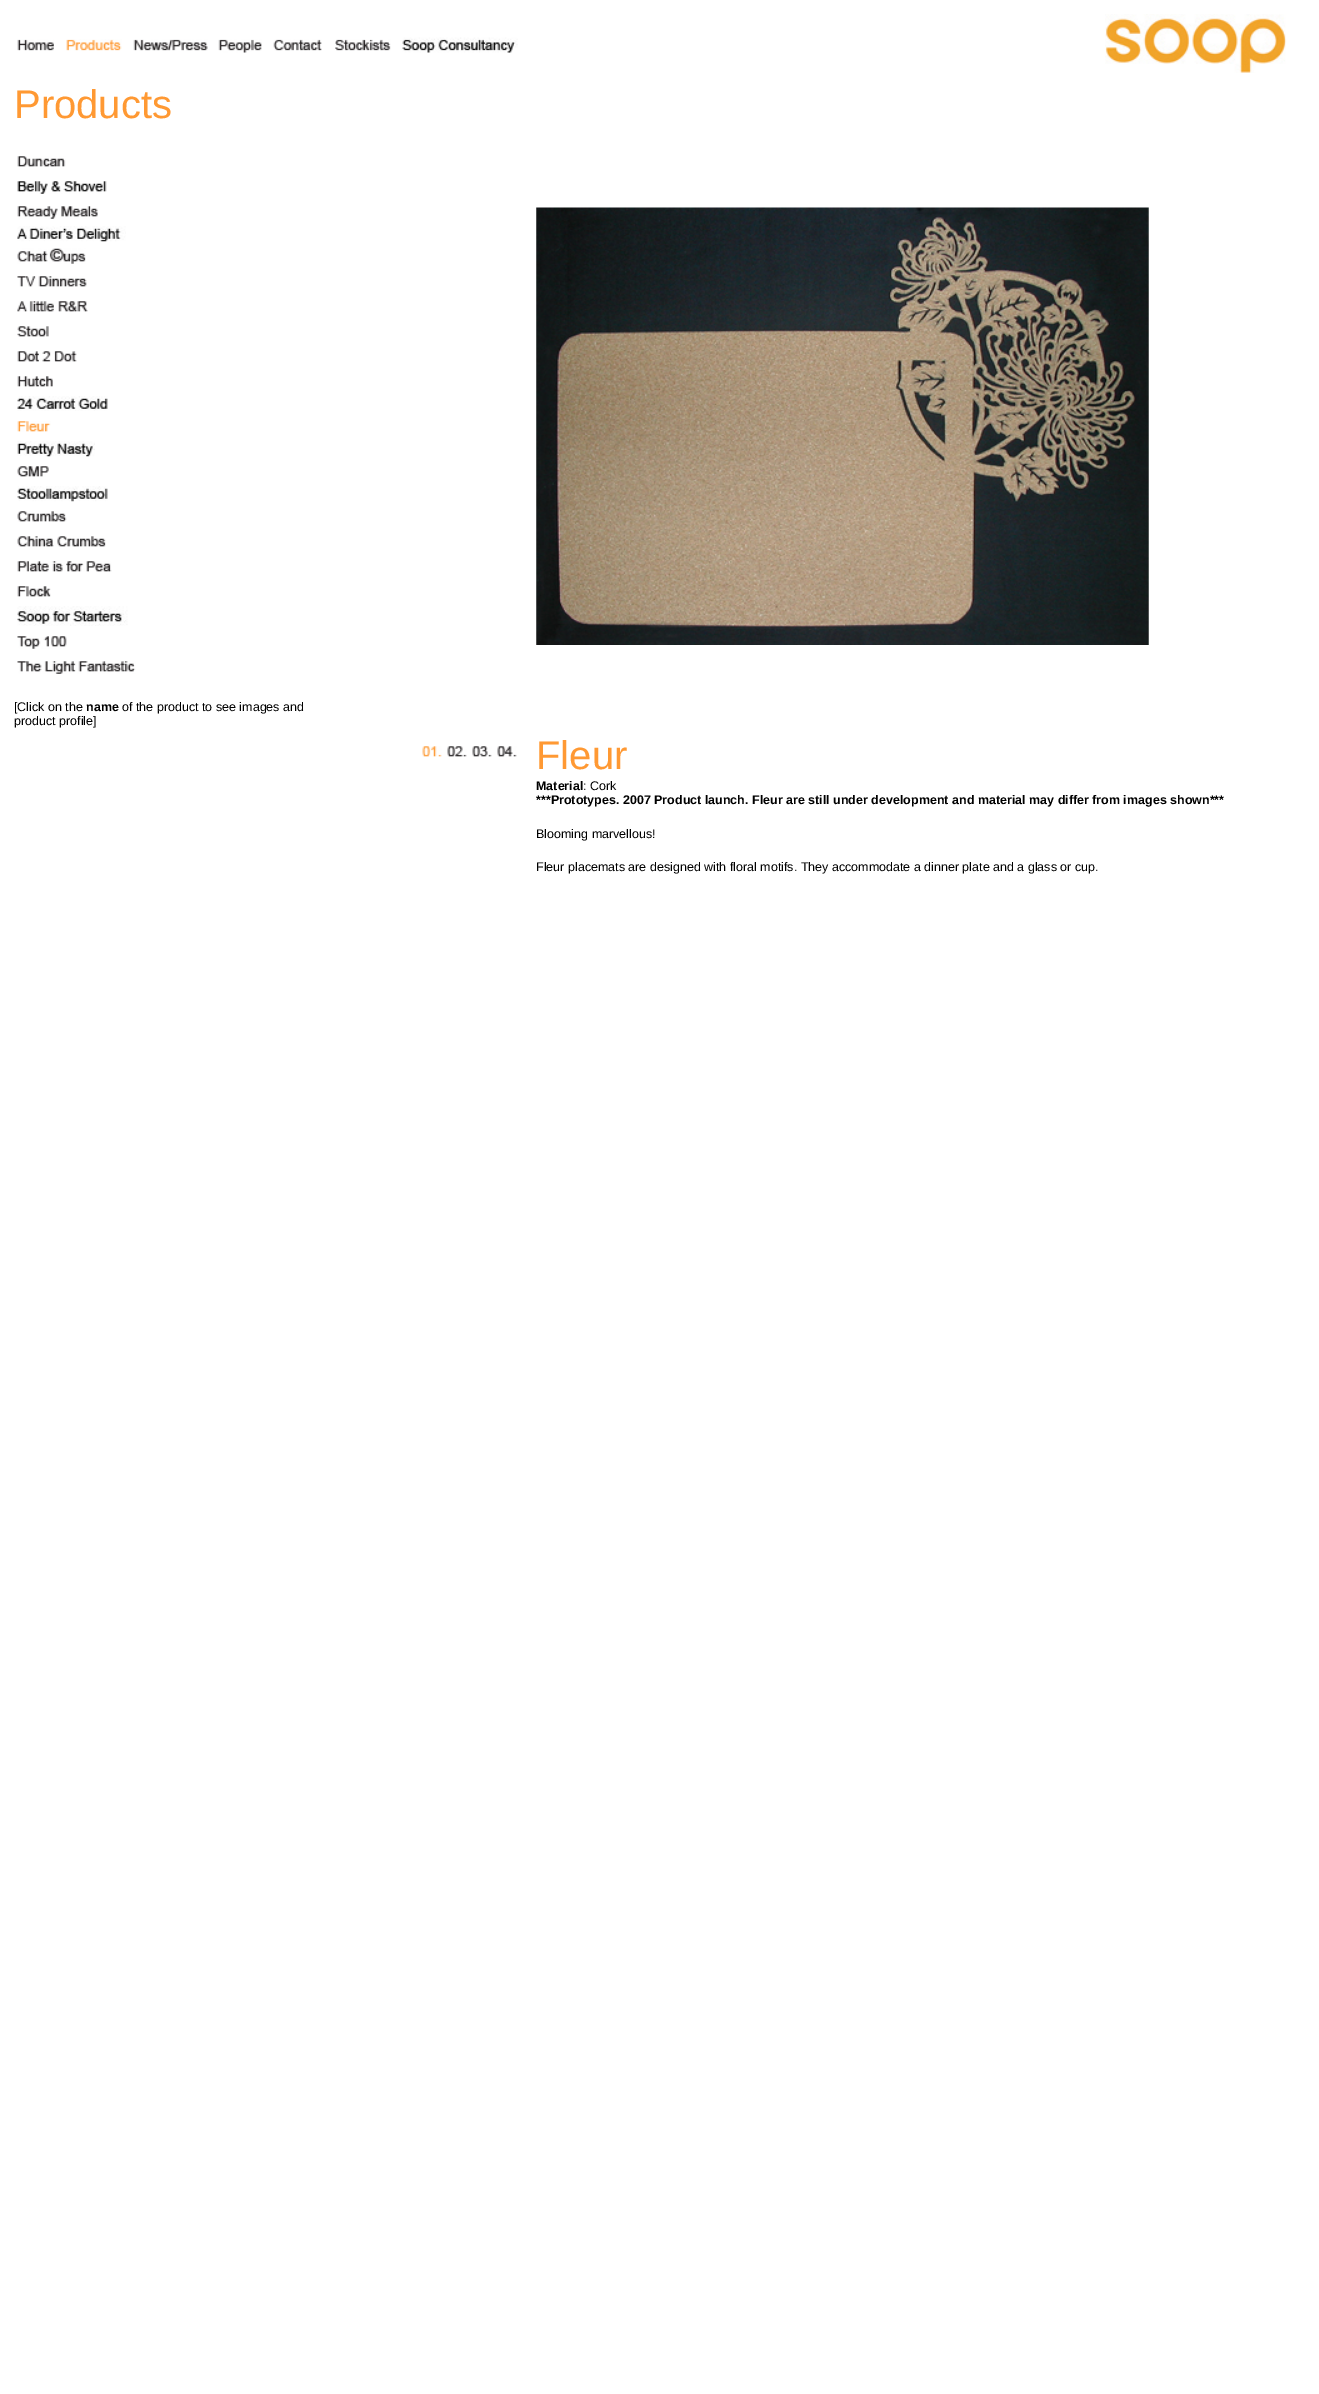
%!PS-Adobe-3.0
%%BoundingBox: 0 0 1319 2394
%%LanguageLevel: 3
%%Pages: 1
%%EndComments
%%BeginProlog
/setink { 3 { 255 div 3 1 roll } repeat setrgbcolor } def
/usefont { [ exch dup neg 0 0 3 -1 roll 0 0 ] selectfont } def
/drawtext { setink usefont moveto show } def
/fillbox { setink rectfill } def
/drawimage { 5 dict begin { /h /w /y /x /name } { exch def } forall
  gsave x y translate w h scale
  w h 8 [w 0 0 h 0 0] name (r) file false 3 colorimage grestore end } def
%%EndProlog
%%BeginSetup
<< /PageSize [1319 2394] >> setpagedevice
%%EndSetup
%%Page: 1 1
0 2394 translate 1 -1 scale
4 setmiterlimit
0 0 1319 2394 255 255 255 fillbox
(assets/img1.rgb) 17 39 37 12 drawimage
(assets/img2.rgb) 66 39 56 12 drawimage
(assets/img3.rgb) 133 39 75 12 drawimage
(assets/img4.rgb) 218 39 44 14 drawimage
(assets/img5.rgb) 273 39 49 12 drawimage
(assets/img6.rgb) 335 39 56 12 drawimage
(assets/img7.rgb) 402 37 116 16 drawimage
(assets/img8.rgb) 1105 14 182 59 drawimage
(Products) 14 118 /LiberationSans-Regular 40 255 153 51 drawtext
(assets/img9.rgb) 17 156 49 11 drawimage
(assets/img10.rgb) 17 181 90 13 drawimage
(assets/img11.rgb) 17 206 81 13 drawimage
(assets/img12.rgb) 17 226 109 16 drawimage
(assets/img13.rgb) 17 248 69 16 drawimage
(assets/img14.rgb) 17 276 70 11 drawimage
(assets/img15.rgb) 17 301 71 11 drawimage
(assets/img16.rgb) 17 326 32 11 drawimage
(assets/img17.rgb) 17 351 60 11 drawimage
(assets/img18.rgb) 17 376 36 11 drawimage
(assets/img19.rgb) 17 396 91 15 drawimage
(assets/img20.rgb) 17 421 34 11 drawimage
(assets/img21.rgb) 17 441 78 16 drawimage
(assets/img22.rgb) 17 466 32 11 drawimage
(assets/img23.rgb) 17 486 91 16 drawimage
(assets/img24.rgb) 17 511 50 11 drawimage
(assets/img25.rgb) 17 536 89 11 drawimage
(assets/img26.rgb) 17 561 95 11 drawimage
(assets/img27.rgb) 17 586 34 11 drawimage
(assets/img28.rgb) 17 606 111 20 drawimage
(assets/img29.rgb) 17 636 50 13 drawimage
(assets/img30.rgb) 17 661 119 13 drawimage
([Click on the) 14 711 /LiberationSans-Regular 12.5 0 0 0 drawtext
(name) 86 711 /LiberationSans-Bold 12.5 0 0 0 drawtext
(of the product to see images and) 122 711 /LiberationSans-Regular 12.5 0 0 0 drawtext
(product profile]) 14 725 /LiberationSans-Regular 12.5 0 0 0 drawtext
(assets/img31.rgb) 536 207 613 438 drawimage
(assets/img32.rgb) 422 746 20 11 drawimage
(assets/img33.rgb) 447 746 20 11 drawimage
(assets/img34.rgb) 472 746 20 11 drawimage
(assets/img35.rgb) 497 746 20 11 drawimage
(Fleur) 536 769 /LiberationSans-Regular 40 255 153 51 drawtext
(Material) 536 790 /LiberationSans-Bold 12.5 0 0 0 drawtext
(: Cork) 583 790 /LiberationSans-Regular 12.5 0 0 0 drawtext
(***Prototypes. 2007 Product launch. Fleur are still under development and material may differ from images shown***) 536 804 /LiberationSans-Bold 12.5 0 0 0 drawtext
(Blooming marvellous!) 536 838 /LiberationSans-Regular 12.5 0 0 0 drawtext
(Fleur placemats are designed with floral motifs. They accommodate a dinner plate and a glass or cup.) 536 871 /LiberationSans-Regular 12.5 0 0 0 drawtext
showpage
%%EOF
